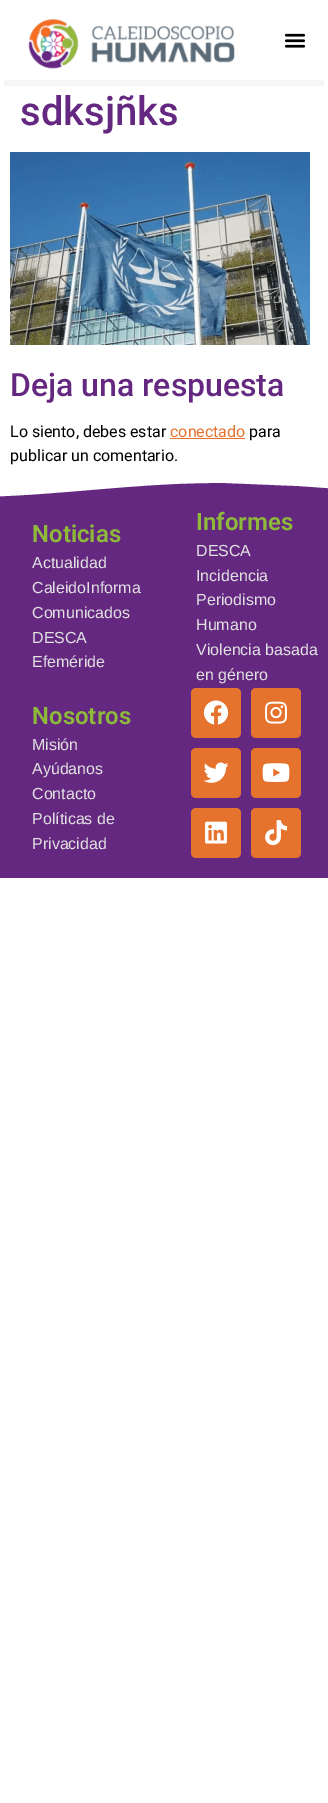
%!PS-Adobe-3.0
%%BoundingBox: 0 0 328 1803
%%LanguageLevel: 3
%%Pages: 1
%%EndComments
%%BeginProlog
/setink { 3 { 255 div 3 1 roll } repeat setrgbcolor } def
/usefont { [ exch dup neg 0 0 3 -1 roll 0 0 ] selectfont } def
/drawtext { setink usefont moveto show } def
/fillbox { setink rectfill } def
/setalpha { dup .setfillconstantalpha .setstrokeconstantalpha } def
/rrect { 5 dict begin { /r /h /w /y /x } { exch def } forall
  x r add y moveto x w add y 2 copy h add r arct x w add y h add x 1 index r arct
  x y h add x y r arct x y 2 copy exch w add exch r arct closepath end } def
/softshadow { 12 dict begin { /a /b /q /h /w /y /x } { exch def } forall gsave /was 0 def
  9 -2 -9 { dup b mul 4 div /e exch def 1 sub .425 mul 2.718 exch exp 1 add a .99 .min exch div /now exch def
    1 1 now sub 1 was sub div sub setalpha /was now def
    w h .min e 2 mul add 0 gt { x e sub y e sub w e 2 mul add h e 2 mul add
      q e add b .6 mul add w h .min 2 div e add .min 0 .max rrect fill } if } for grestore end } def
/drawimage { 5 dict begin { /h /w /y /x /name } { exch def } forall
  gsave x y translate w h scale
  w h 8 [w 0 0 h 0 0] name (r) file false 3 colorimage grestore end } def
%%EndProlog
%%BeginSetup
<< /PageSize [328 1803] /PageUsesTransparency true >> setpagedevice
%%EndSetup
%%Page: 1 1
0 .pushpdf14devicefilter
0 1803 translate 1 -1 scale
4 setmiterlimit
0 0 328 1803 255 255 255 fillbox
gsave
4 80 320 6 rectclip
0 0 0 setink
6 -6 316 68 0 14 0.5 softshadow
grestore
(assets/img1.rgb) 28 18 207 51 drawimage
(assets/img2.rgb) 284 33 22 15 drawimage
(sdksjñks) 20 125 /Roboto-Medium 40 101 40 129 drawtext
(assets/img3.rgb) 10 152 300 193 drawimage
(Deja una respuesta) 10 396 /Roboto-Medium 32 101 40 129 drawtext
(Lo siento, debes estar) 10 437 /Roboto-Regular 16 0 0 0 drawtext
(conectado) 170 437 /Roboto-Regular 16 229 115 46 drawtext
170 438 75 1 229 115 46 fillbox
(para) 249 437 /Roboto-Regular 16 0 0 0 drawtext
(publicar un comentario.) 10 461 /Roboto-Regular 16 0 0 0 drawtext
0 483 328 395 101 40 129 fillbox
gsave
0 483 328 16 rectclip
255 255 255 setink
226 483 moveto 158 482 91 491 24 495 curveto -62 500 -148 501 -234 494 curveto -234 482 lineto 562 482 lineto 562 487 lineto 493 494 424 494 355 490 curveto 299 486 lineto 275 485 251 484 226 483 curveto closepath fill
grestore
(Noticias) 32 542 /Roboto-SemiBold 24 142 186 57 drawtext
(Actualidad) 32 568 /LiberationSans-Regular 16 225 225 225 drawtext
(CaleidoInforma) 32 593 /LiberationSans-Regular 16 225 225 225 drawtext
(Comunicados) 32 618 /LiberationSans-Regular 16 225 225 225 drawtext
(DESCA) 32 643 /LiberationSans-Regular 16 225 225 225 drawtext
(Efeméride) 32 667 /LiberationSans-Regular 16 225 225 225 drawtext
(Informes) 196 530 /Roboto-SemiBold 24 142 186 57 drawtext
(DESCA) 196 556 /LiberationSans-Regular 16 225 225 225 drawtext
(Incidencia) 196 581 /LiberationSans-Regular 16 225 225 225 drawtext
(Periodismo) 196 605 /LiberationSans-Regular 16 225 225 225 drawtext
(Humano) 196 630 /LiberationSans-Regular 16 225 225 225 drawtext
(Violencia basada) 196 655 /LiberationSans-Regular 16 225 225 225 drawtext
(en género) 196 680 /LiberationSans-Regular 16 225 225 225 drawtext
(Nosotros) 32 724 /Roboto-SemiBold 24 142 186 57 drawtext
(Misión) 32 750 /LiberationSans-Regular 16 225 225 225 drawtext
(Ayúdanos) 32 774 /LiberationSans-Regular 16 225 225 225 drawtext
(Contacto) 32 799 /LiberationSans-Regular 16 225 225 225 drawtext
(Políticas de) 32 824 /LiberationSans-Regular 16 225 225 225 drawtext
(Privacidad) 32 849 /LiberationSans-Regular 16 225 225 225 drawtext
229 115 46 setink
191 688 50 50 5 rrect fill
(assets/img4.rgb) 203 700 26 25 drawimage
251 688 50 50 5 rrect fill
(assets/img5.rgb) 265 701 22 23 drawimage
191 748 50 50 5 rrect fill
(assets/img6.rgb) 203 762 26 21 drawimage
251 748 50 50 5 rrect fill
(assets/img7.rgb) 262 763 28 19 drawimage
191 808 50 50 5 rrect fill
(assets/img8.rgb) 205 821 22 23 drawimage
251 808 50 50 5 rrect fill
(assets/img9.rgb) 265 820 22 26 drawimage
.poppdf14devicefilter showpage
%%EOF
